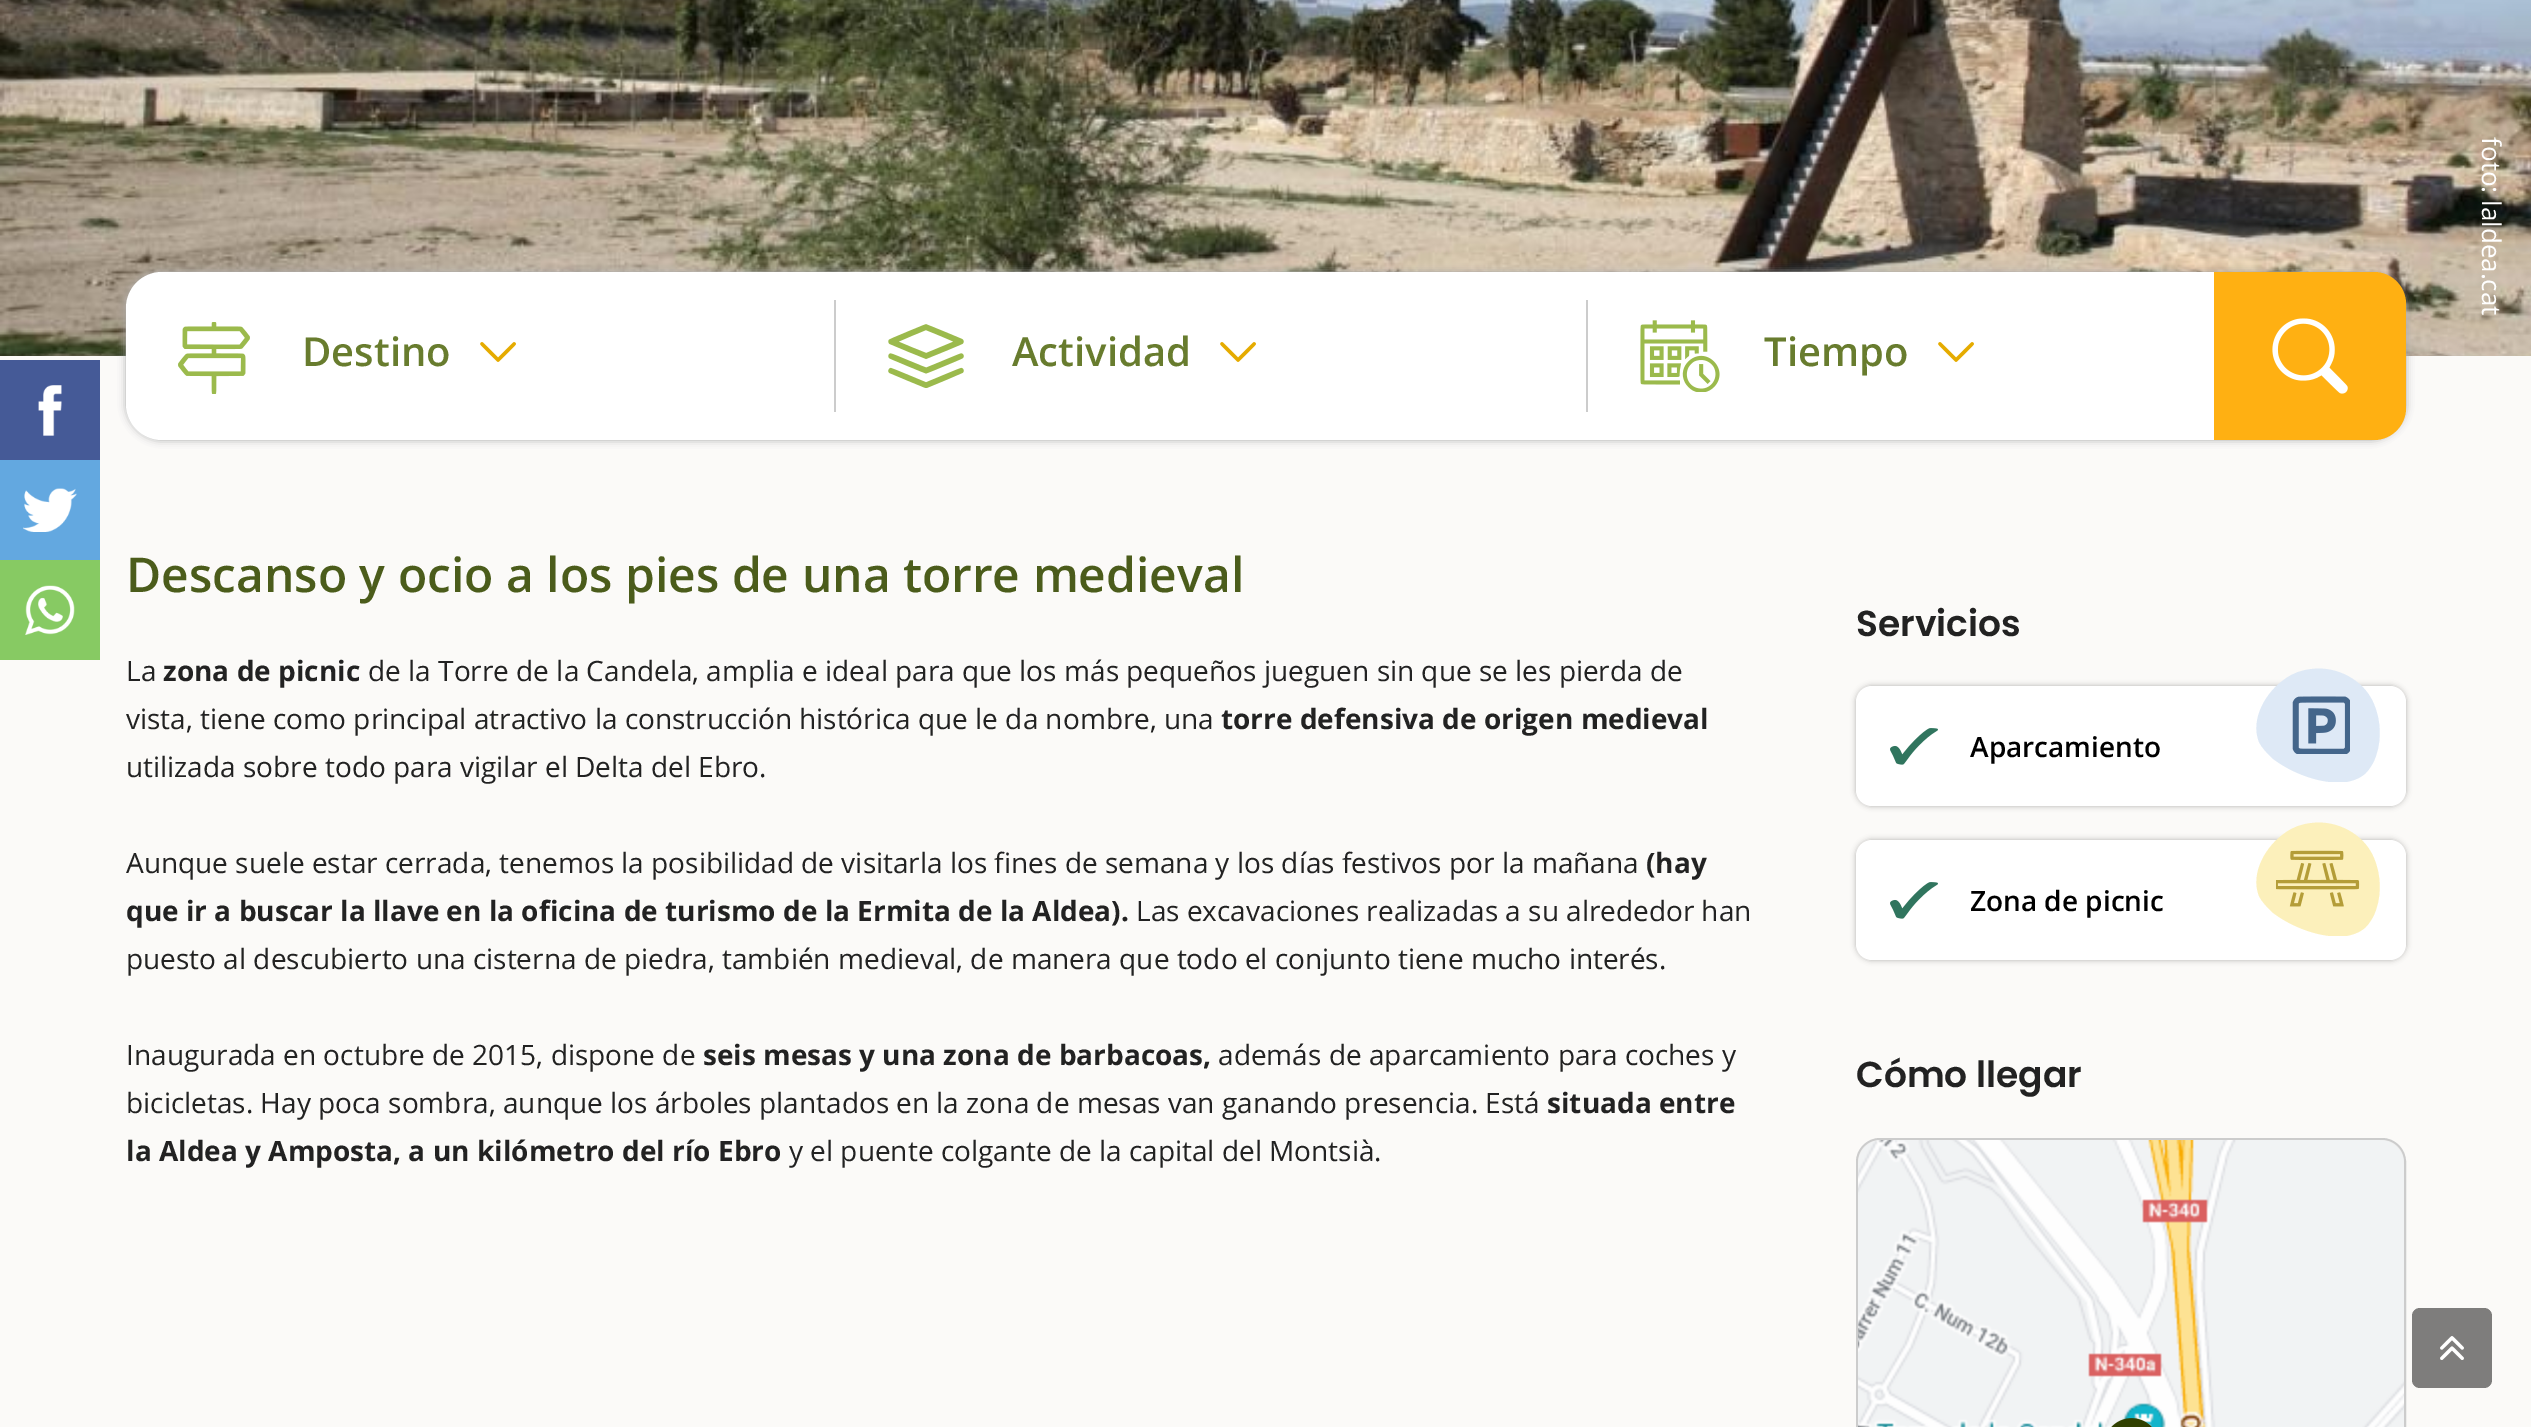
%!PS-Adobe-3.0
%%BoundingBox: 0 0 2531 1427
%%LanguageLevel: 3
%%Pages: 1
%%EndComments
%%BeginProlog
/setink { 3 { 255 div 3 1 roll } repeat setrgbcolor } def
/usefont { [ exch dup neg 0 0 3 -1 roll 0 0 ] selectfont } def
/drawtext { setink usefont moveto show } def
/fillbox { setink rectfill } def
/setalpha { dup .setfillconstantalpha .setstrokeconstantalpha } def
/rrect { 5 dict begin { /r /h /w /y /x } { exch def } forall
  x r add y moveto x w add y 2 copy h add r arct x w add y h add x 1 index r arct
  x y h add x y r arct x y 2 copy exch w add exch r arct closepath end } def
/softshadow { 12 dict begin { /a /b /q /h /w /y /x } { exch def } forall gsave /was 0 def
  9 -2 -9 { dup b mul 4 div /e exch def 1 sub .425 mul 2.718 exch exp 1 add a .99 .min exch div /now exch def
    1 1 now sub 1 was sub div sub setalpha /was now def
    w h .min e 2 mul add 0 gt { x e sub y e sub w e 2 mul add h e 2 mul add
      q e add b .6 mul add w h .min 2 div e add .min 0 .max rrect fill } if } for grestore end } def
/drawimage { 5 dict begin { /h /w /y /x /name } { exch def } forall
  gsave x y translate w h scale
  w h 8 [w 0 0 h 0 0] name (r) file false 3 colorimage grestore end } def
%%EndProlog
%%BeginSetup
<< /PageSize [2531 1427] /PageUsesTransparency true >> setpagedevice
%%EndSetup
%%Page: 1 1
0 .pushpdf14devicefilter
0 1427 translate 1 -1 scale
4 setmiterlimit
0 0 2531 1427 251 250 248 fillbox
(assets/img1.rgb) 0 0 2531 356 drawimage
/OpenSans-Regular 26 usefont
255 255 255 setink
gsave 2482 137 translate 90 rotate 0 0 moveto (foto:) show grestore
gsave 2482 200 translate 90 rotate 0 0 moveto (laldea.cat) show grestore
170 170 170 setink
126 272 2280 168 36 4 1 softshadow
255 255 255 setink
126 272 2280 168 36 rrect fill
(assets/img2.rgb) 178 322 72 72 drawimage
(assets/img3.rgb) 480 342 36 20 drawimage
(Destino) 302 366 /OpenSans-SemiBold 40 104 124 46 drawtext
834 300 2 112 204 204 204 fillbox
(assets/img4.rgb) 888 324 76 64 drawimage
(assets/img3.rgb) 1220 342 36 20 drawimage
(Actividad) 1012 366 /OpenSans-SemiBold 40 104 124 46 drawtext
1586 300 2 112 204 204 204 fillbox
(assets/img5.rgb) 1640 320 80 72 drawimage
(assets/img3.rgb) 1938 342 36 20 drawimage
(Tiempo) 1764 366 /OpenSans-SemiBold 40 104 124 46 drawtext
255 176 18 setink
2214 272 moveto 2374 272 lineto 2391.5 272 2406 286.5 2406 304 curveto 2406 408 lineto 2406 425.5 2391.5 440 2374 440 curveto 2214 440 lineto closepath fill
(assets/img6.rgb) 2272 318 76 76 drawimage
0 360 100 100 69 90 151 fillbox
(assets/img7.rgb) 38 385 24 51 drawimage
0 460 100 100 99 168 224 fillbox
(assets/img8.rgb) 23 488 54 44 drawimage
0 560 100 100 135 202 99 fillbox
(assets/img9.rgb) 25 585 50 50 drawimage
(Descanso y ocio a los pies de una torre medieval) 126 592 /OpenSans-SemiBold 48 75 92 27 drawtext
(La) 126 681 /OpenSans-Regular 28 34 34 34 drawtext
(zona de picnic) 163 681 /OpenSans-Bold 28 34 34 34 drawtext
(de la Torre de la Candela, amplia e ideal para que los más pequeños jueguen sin que se les pierda de) 368 681 /OpenSans-Regular 28 34 34 34 drawtext
(vista, tiene como principal atractivo la construcción histórica que le da nombre, una) 126 729 /OpenSans-Regular 28 34 34 34 drawtext
(torre defensiva de origen medieval) 1221 729 /OpenSans-Bold 28 34 34 34 drawtext
(utilizada sobre todo para vigilar el Delta del Ebro.) 126 777 /OpenSans-Regular 28 34 34 34 drawtext
(Aunque suele estar cerrada, tenemos la posibilidad de visitarla los fines de semana y los días festivos por la mañana) 126 873 /OpenSans-Regular 28 34 34 34 drawtext
(\(hay) 1646 873 /OpenSans-Bold 28 34 34 34 drawtext
(que ir a buscar la llave en la oficina de turismo de la Ermita de la Aldea\).) 126 921 /OpenSans-Bold 28 34 34 34 drawtext
(Las excavaciones realizadas a su alrededor han) 1136 921 /OpenSans-Regular 28 34 34 34 drawtext
(puesto al descubierto una cisterna de piedra, también medieval, de manera que todo el conjunto tiene mucho interés.) 126 969 /OpenSans-Regular 28 34 34 34 drawtext
(Inaugurada en octubre de 2015, dispone de) 126 1065 /OpenSans-Regular 28 34 34 34 drawtext
(seis mesas y una zona de barbacoas,) 703 1065 /OpenSans-Bold 28 34 34 34 drawtext
(además de aparcamiento para coches y) 1218 1065 /OpenSans-Regular 28 34 34 34 drawtext
(bicicletas. Hay poca sombra, aunque los árboles plantados en la zona de mesas van ganando presencia. Está) 126 1113 /OpenSans-Regular 28 34 34 34 drawtext
(situada entre) 1547 1113 /OpenSans-Bold 28 34 34 34 drawtext
(la Aldea y Amposta, a un kilómetro del río Ebro) 126 1161 /OpenSans-Bold 28 34 34 34 drawtext
(y el puente colgante de la capital del Montsià.) 789 1161 /OpenSans-Regular 28 34 34 34 drawtext
(Servicios) 1856 636 /Poppins-SemiBold 36 34 34 34 drawtext
0 0 0 setink
1856 686 550 120 16 3 0.3 softshadow
255 255 255 setink
1856 686 550 120 16 rrect fill
(assets/img10.rgb) 1890 728 48 37 drawimage
gsave
2256 668 124 114 rectclip
222 233 246 setink
2312 669 moveto 2302 670 2293 673 2285 679 curveto 2266 692 2250 719 2259 742 curveto 2262 748 2267 753 2272 758 curveto 2291 773 2322 785 2346 782 curveto 2352 781 2358 779 2362 776 curveto 2367 773 2370 768 2373 763 curveto 2382 745 2382 721 2373 702 curveto 2363 680 2337 666 2312 669 curveto closepath fill
grestore
(Aparcamiento) 1970 757 /OpenSans-SemiBold 28 0 0 0 drawtext
(assets/img11.rgb) 2292 696 58 58 drawimage
1856 840 550 120 16 3 0.3 softshadow
255 255 255 setink
1856 840 550 120 16 rrect fill
(assets/img10.rgb) 1890 882 48 37 drawimage
gsave
2256 822 124 114 rectclip
252 240 187 setink
2312 823 moveto 2302 824 2293 827 2285 833 curveto 2266 846 2250 873 2259 896 curveto 2262 902 2267 907 2272 912 curveto 2291 927 2322 939 2346 936 curveto 2352 935 2358 933 2362 930 curveto 2367 927 2370 922 2373 917 curveto 2382 899 2382 875 2373 856 curveto 2363 834 2337 820 2312 823 curveto closepath fill
grestore
(Zona de picnic) 1970 911 /OpenSans-SemiBold 28 0 0 0 drawtext
(assets/img12.rgb) 2276 850 84 57 drawimage
(Cómo llegar) 1856 1087 /Poppins-SemiBold 36 34 34 34 drawtext
238 238 238 setink
1857 1139 548 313 23 rrect gsave fill grestore
204 204 204 setink
2 setlinewidth
stroke
(assets/img13.rgb) 1858 1140 546 287 drawimage
(assets/img14.rgb) 2111 1418 41 9 drawimage
126 125 124 setink
2412 1308 80 80 8 rrect fill
(assets/img15.rgb) 2440 1336 24 24 drawimage
.poppdf14devicefilter showpage
%%EOF
